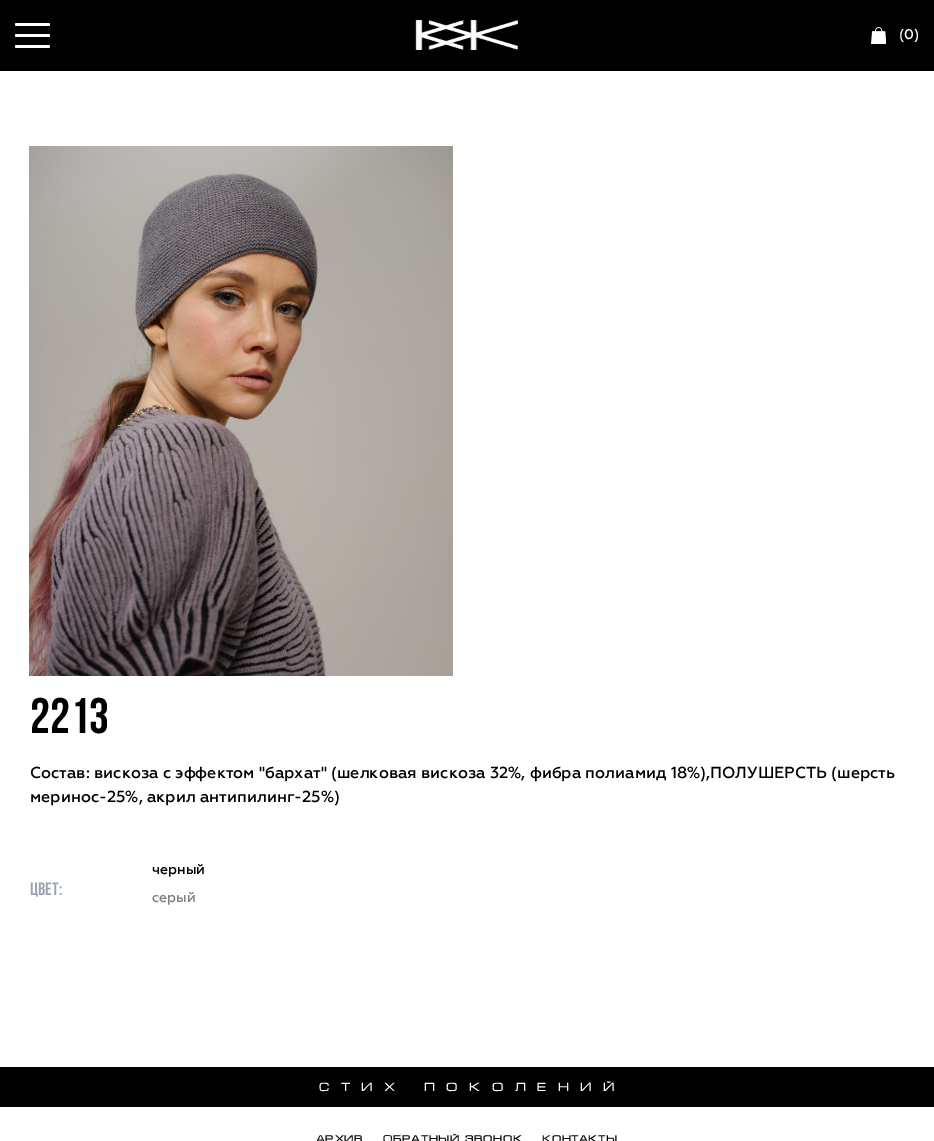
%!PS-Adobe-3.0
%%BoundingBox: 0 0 934 1141
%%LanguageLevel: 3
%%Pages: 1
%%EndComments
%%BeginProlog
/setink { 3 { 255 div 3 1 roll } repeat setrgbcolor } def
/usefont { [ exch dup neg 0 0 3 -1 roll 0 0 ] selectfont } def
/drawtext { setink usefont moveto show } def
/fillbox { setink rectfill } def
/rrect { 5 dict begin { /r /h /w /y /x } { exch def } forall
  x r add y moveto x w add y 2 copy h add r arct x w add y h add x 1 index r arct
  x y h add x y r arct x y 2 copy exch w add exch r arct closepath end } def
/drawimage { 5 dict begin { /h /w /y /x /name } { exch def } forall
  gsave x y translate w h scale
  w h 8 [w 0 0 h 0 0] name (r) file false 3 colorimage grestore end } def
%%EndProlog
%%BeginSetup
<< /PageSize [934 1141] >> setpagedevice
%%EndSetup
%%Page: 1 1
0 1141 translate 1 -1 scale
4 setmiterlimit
0 0 934 1141 255 255 255 fillbox
0 0 934 71 0 0 0 fillbox
255 255 255 setink
15 23 35 3 1.5 rrect fill
15 34 35 3 1.5 rrect fill
15 45 35 3 1.5 rrect fill
(assets/img1.rgb) 415 20 103 30 drawimage
(assets/img2.rgb) 871 27 15 17 drawimage
(\(0\)) 899 39 /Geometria-Medium 14 255 255 255 drawtext
(assets/img3.rgb) 29 146 424 530 drawimage
(2213) 30 733 /BebasNeue-Bold 50 0 0 0 drawtext
(Состав: вискоза с эффектом "бархат" \(шелковая вискоза 32%, фибра полиамид 18%\),ПОЛУШЕРСТЬ \(шерсть) 30 778 /Geometria-Medium 16 0 0 0 drawtext
(меринос-25%, акрил антипилинг-25%\)) 30 802 /Geometria-Medium 16 0 0 0 drawtext
(Цвет:) 30 895 /BebasNeue-Bold 18 156 164 175 drawtext
(черный) 152 874 /Geometria-Medium 14 0 0 0 drawtext
(серый) 152 902 /Geometria-Medium 14 128 128 128 drawtext
0 1067 934 40 0 0 0 fillbox
/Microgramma-Regular 12 usefont
255 255 255 setink
319 1091 moveto 11 0 (СТИХ ПОКОЛЕНИЙ) ashow
(Архив) 316 1142 /Microgramma-Regular 10 0 0 0 drawtext
(Обратный звонок) 383 1142 /Microgramma-Regular 10 0 0 0 drawtext
(Контакты) 542 1142 /Microgramma-Regular 10 0 0 0 drawtext
showpage
%%EOF
